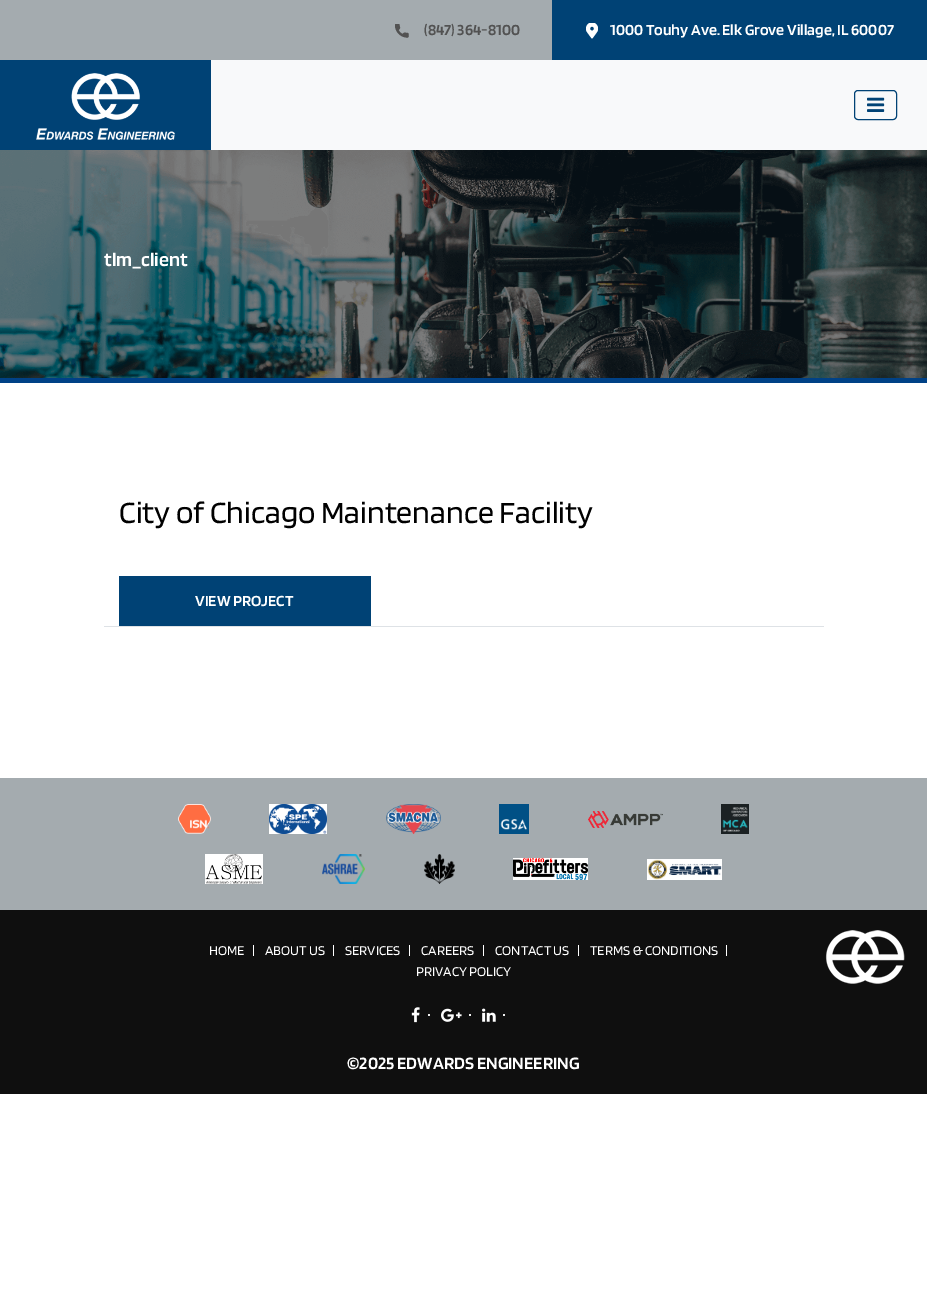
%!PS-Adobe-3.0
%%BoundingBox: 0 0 927 1315
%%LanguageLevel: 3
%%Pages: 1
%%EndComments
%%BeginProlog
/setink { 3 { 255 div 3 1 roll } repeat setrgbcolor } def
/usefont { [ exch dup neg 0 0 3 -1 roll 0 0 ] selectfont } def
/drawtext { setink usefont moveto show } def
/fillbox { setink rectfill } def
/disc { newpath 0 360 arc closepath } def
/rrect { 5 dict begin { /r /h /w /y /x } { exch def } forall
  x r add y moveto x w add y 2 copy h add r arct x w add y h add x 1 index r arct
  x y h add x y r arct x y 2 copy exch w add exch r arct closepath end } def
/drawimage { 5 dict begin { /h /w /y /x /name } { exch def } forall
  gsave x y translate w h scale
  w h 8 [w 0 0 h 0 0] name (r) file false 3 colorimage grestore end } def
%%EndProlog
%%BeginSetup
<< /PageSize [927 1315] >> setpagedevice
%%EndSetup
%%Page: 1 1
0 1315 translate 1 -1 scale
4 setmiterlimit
0 0 927 1315 255 255 255 fillbox
0 0 552 60 164 171 175 fillbox
(assets/img1.rgb) 395 24 14 14 drawimage
(\(847\) 364-8100) 424 35 /Blinker-SemiBold 16 82 82 82 drawtext
552 0 375 60 0 66 117 fillbox
(assets/img2.rgb) 586 23 12 16 drawimage
(1000 Touhy Ave. Elk Grove Village, IL 60007) 610 35 /Blinker-SemiBold 16 255 255 255 drawtext
211 60 716 90 248 249 250 fillbox
0 60 211 90 0 66 117 fillbox
(assets/img3.rgb) 36 73 139 67 drawimage
854.5 90.5 42 29 3.5 rrect stroke
(assets/img4.rgb) 867 97 18 15 drawimage
(assets/img5.rgb) 0 150 927 228 drawimage
0 378 927 5 0 65 134 fillbox
(tlm_client) 104 266 /Blinker-SemiBold 20 255 255 255 drawtext
104 626 720 1 222 226 230 fillbox
(City of Chicago Maintenance Facility) 119 523 /Blinker-Regular 32 0 0 0 drawtext
119 576 252 50 0 66 117 fillbox
(VIEW PROJECT) 195 606 /Blinker-SemiBold 16 255 255 255 drawtext
0 778 927 132 164 171 175 fillbox
(assets/img6.rgb) 178 804 33 30 drawimage
(assets/img7.rgb) 269 804 58 30 drawimage
(assets/img8.rgb) 386 804 55 30 drawimage
(assets/img9.rgb) 499 804 30 30 drawimage
(assets/img10.rgb) 588 811 75 17 drawimage
(assets/img11.rgb) 721 804 28 30 drawimage
(assets/img12.rgb) 205 854 58 30 drawimage
(assets/img13.rgb) 322 854 43 30 drawimage
(assets/img14.rgb) 424 854 31 30 drawimage
(assets/img15.rgb) 513 858 75 22 drawimage
(assets/img16.rgb) 647 859 75 21 drawimage
0 910 927 184 15 15 15 fillbox
(HOME) 209 955 /Blinker-Regular 14 255 255 255 drawtext
(|) 252 955 /Blinker-Regular 14 255 255 255 drawtext
(ABOUT US) 265 955 /Blinker-Regular 14 255 255 255 drawtext
(|) 332 955 /Blinker-Regular 14 255 255 255 drawtext
(SERVICES) 345 955 /Blinker-Regular 14 255 255 255 drawtext
(|) 408 955 /Blinker-Regular 14 255 255 255 drawtext
(CAREERS) 421 955 /Blinker-Regular 14 255 255 255 drawtext
(|) 482 955 /Blinker-Regular 14 255 255 255 drawtext
(CONTACT US) 495 955 /Blinker-Regular 14 255 255 255 drawtext
(|) 577 955 /Blinker-Regular 14 255 255 255 drawtext
(TERMS & CONDITIONS) 590 955 /Blinker-Regular 14 255 255 255 drawtext
(|) 725 955 /Blinker-Regular 14 255 255 255 drawtext
(PRIVACY POLICY) 416 976 /Blinker-Regular 14 255 255 255 drawtext
(assets/img17.rgb) 411 1007 9 16 drawimage
429 1015 1 disc fill
(assets/img18.rgb) 441 1008 21 14 drawimage
470 1015 1 disc fill
(assets/img19.rgb) 482 1008 14 14 drawimage
504 1015 1 disc fill
(©2025 EDWARDS ENGINEERING) 347 1069 /Blinker-SemiBold 18 255 255 255 drawtext
(assets/img20.rgb) 825 930 80 54 drawimage
showpage
%%EOF
